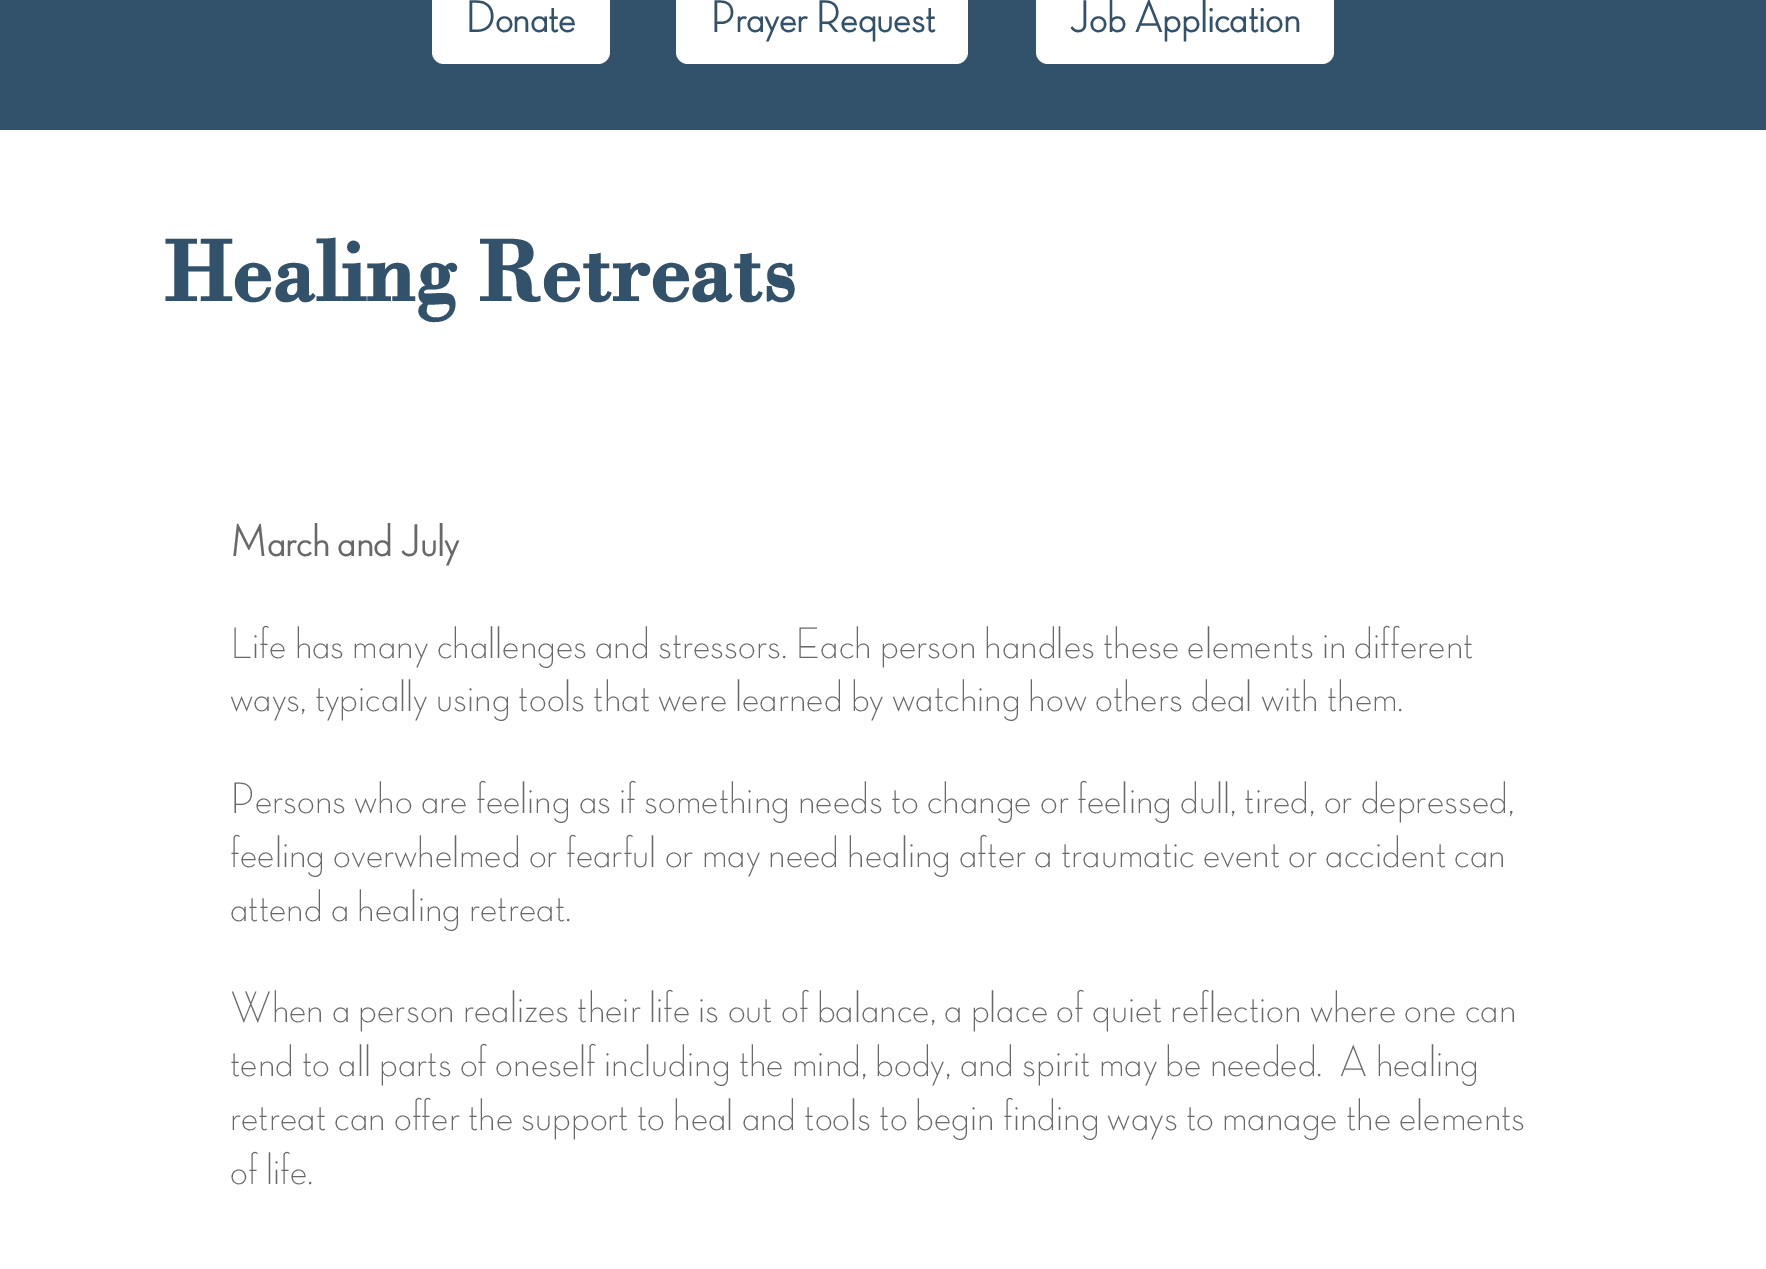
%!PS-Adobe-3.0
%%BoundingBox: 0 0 1766 1269
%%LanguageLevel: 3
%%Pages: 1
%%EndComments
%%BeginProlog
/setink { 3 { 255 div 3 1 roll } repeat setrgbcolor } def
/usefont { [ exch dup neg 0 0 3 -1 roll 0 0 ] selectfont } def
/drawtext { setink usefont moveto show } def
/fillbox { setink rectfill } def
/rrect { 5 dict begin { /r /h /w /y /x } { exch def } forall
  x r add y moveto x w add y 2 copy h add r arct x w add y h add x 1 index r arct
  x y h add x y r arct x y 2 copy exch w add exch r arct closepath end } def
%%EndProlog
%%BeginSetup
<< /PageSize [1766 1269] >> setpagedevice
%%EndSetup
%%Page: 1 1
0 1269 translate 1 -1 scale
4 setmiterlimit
0 0 1766 1269 255 255 255 fillbox
0 0 1766 130 50 81 107 fillbox
255 255 255 setink
432 -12 178 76 12 rrect fill
(Donate) 465 32 /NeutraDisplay-Bold 44.8 50 81 107 drawtext
255 255 255 setink
676 -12 292 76 12 rrect fill
(Prayer Request) 710 32 /NeutraDisplay-Bold 44.8 50 81 107 drawtext
255 255 255 setink
1036 -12 298 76 12 rrect fill
(Job Application) 1069 32 /NeutraDisplay-Bold 44.8 50 81 107 drawtext
(Healing Retreats) 163 301 /Bodoni-Bold 89.5 50 81 107 drawtext
(March and July) 230 556 /NeutraDisplay-Bold 44.8 104 104 104 drawtext
(Life has many challenges and stressors. Each person handles these elements in different) 230 658 /NeutraDisplay-Light 44.8 104 104 104 drawtext
(ways, typically using tools that were learned by watching how others deal with them.) 230 711 /NeutraDisplay-Light 44.8 104 104 104 drawtext
(Persons who are feeling as if something needs to change or feeling dull, tired, or depressed,) 230 813 /NeutraDisplay-Light 44.8 104 104 104 drawtext
(feeling overwhelmed or fearful or may need healing after a traumatic event or accident can) 230 867 /NeutraDisplay-Light 44.8 104 104 104 drawtext
(attend a healing retreat.) 230 921 /NeutraDisplay-Light 44.8 104 104 104 drawtext
(When a person realizes their life is out of balance, a place of quiet reflection where one can) 230 1022 /NeutraDisplay-Light 44.8 104 104 104 drawtext
(tend to all parts of oneself including the mind, body, and spirit may be needed.  A healing) 230 1076 /NeutraDisplay-Light 44.8 104 104 104 drawtext
(retreat can offer the support to heal and tools to begin finding ways to manage the elements) 230 1130 /NeutraDisplay-Light 44.8 104 104 104 drawtext
(of life.) 230 1184 /NeutraDisplay-Light 44.8 104 104 104 drawtext
showpage
%%EOF
